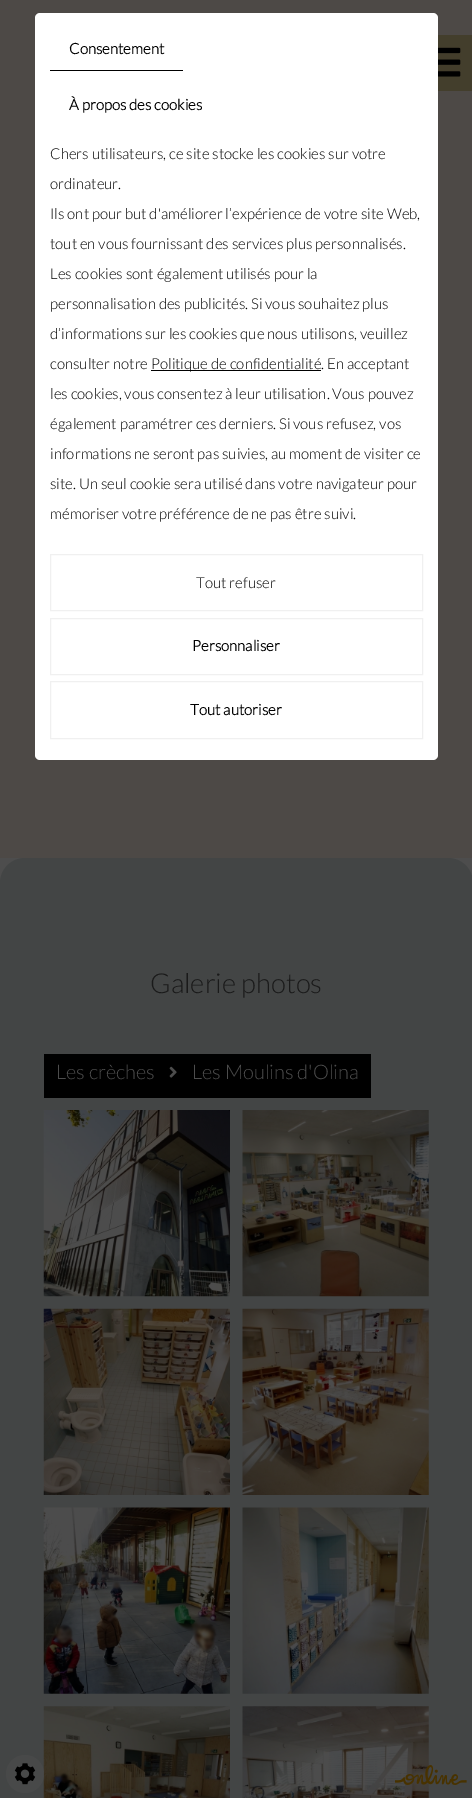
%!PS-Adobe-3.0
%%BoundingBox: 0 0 472 1798
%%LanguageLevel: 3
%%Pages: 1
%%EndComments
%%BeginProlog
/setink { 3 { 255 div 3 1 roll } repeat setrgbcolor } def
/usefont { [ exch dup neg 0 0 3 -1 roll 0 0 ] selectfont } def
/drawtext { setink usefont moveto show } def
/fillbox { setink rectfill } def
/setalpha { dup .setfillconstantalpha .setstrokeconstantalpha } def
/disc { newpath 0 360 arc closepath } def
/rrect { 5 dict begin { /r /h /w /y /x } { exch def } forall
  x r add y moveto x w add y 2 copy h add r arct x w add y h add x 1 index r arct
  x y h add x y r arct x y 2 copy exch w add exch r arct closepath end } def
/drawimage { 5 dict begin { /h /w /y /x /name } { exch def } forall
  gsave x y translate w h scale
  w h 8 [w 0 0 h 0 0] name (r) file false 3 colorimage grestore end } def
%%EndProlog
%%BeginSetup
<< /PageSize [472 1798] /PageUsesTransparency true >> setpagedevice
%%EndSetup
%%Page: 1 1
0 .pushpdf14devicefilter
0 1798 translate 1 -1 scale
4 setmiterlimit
0 0 472 1798 77 73 70 fillbox
255 255 255 setink
35 13 403 747 5 rrect fill
50 70 133 1 0 0 0 fillbox
(Consentement) 69 54 /Lato-Bold 15 0 0 0 drawtext
(À propos des cookies) 69 110 /Lato-Bold 15 0 0 0 drawtext
(Chers utilisateurs, ce site stocke les cookies sur votre) 50 159 /Lato-Light 15 0 0 0 drawtext
(ordinateur.) 50 189 /Lato-Light 15 0 0 0 drawtext
(Ils ont pour but d'améliorer l’expérience de votre site Web,) 50 219 /Lato-Light 15 0 0 0 drawtext
(tout en vous fournissant des services plus personnalisés.) 50 249 /Lato-Light 15 0 0 0 drawtext
(Les cookies sont également utilisés pour la) 50 279 /Lato-Light 15 0 0 0 drawtext
(personnalisation des publicités. Si vous souhaitez plus) 50 309 /Lato-Light 15 0 0 0 drawtext
(d’informations sur les cookies que nous utilisons, veuillez) 50 339 /Lato-Light 15 0 0 0 drawtext
(consulter notre) 50 369 /Lato-Light 15 0 0 0 drawtext
151 370 170 1 0 0 0 fillbox
(Politique de confidentialité. En acceptant) 151 369 /Lato-Light 15 0 0 0 drawtext
(les cookies, vous consentez à leur utilisation. Vous pouvez) 50 399 /Lato-Light 15 0 0 0 drawtext
(également paramétrer ces derniers. Si vous refusez, vos) 50 429 /Lato-Light 15 0 0 0 drawtext
(informations ne seront pas suivies, au moment de visiter ce) 50 459 /Lato-Light 15 0 0 0 drawtext
(site. Un seul cookie sera utilisé dans votre navigateur pour) 50 489 /Lato-Light 15 0 0 0 drawtext
(mémoriser votre préférence de ne pas être suivi.) 50 519 /Lato-Light 15 0 0 0 drawtext
240 240 240 setink
50.5 554.5 372 56 rectstroke
(Tout refuser) 196 588 /Lato-Light 15 0 0 0 drawtext
240 240 240 setink
50.5 618.5 372 56 rectstroke
(Personnaliser) 192 651 /Lato-Bold 15 0 0 0 drawtext
240 240 240 setink
50.5 681.5 372 57 rectstroke
(Tout autoriser) 190 715 /Lato-Bold 15 0 0 0 drawtext
438 35 34 56 67 62 44 fillbox
(assets/img1.rgb) 438 47 23 30 drawimage
0 858 472 25 77 77 77 fillbox
67 69 69 setink
0 858 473 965 25 rrect fill
(Galerie photos) 150 993 /Lato-Light 27.5 26 26 26 drawtext
44 1054 327 44 0 0 0 fillbox
(Les crèches) 56 1079 /Lato-Light 20 77 77 77 drawtext
(assets/img2.rgb) 169 1066 8 12 drawimage
(Les Moulins d'Olina) 192 1079 /Lato-Light 20 77 77 77 drawtext
(assets/img3.rgb) 43 1110 187 187 drawimage
(assets/img4.rgb) 242 1110 187 187 drawimage
(assets/img5.rgb) 43 1308 187 187 drawimage
(assets/img6.rgb) 242 1308 187 187 drawimage
(assets/img7.rgb) 43 1507 187 187 drawimage
(assets/img8.rgb) 242 1507 187 187 drawimage
(assets/img9.rgb) 43 1706 187 92 drawimage
(assets/img10.rgb) 242 1706 187 92 drawimage
0.54 setalpha
25 1774 19 disc fill
1 setalpha
(assets/img11.rgb) 14 1763 22 22 drawimage
(assets/img12.rgb) 395 1765 72 20 drawimage
.poppdf14devicefilter showpage
%%EOF
